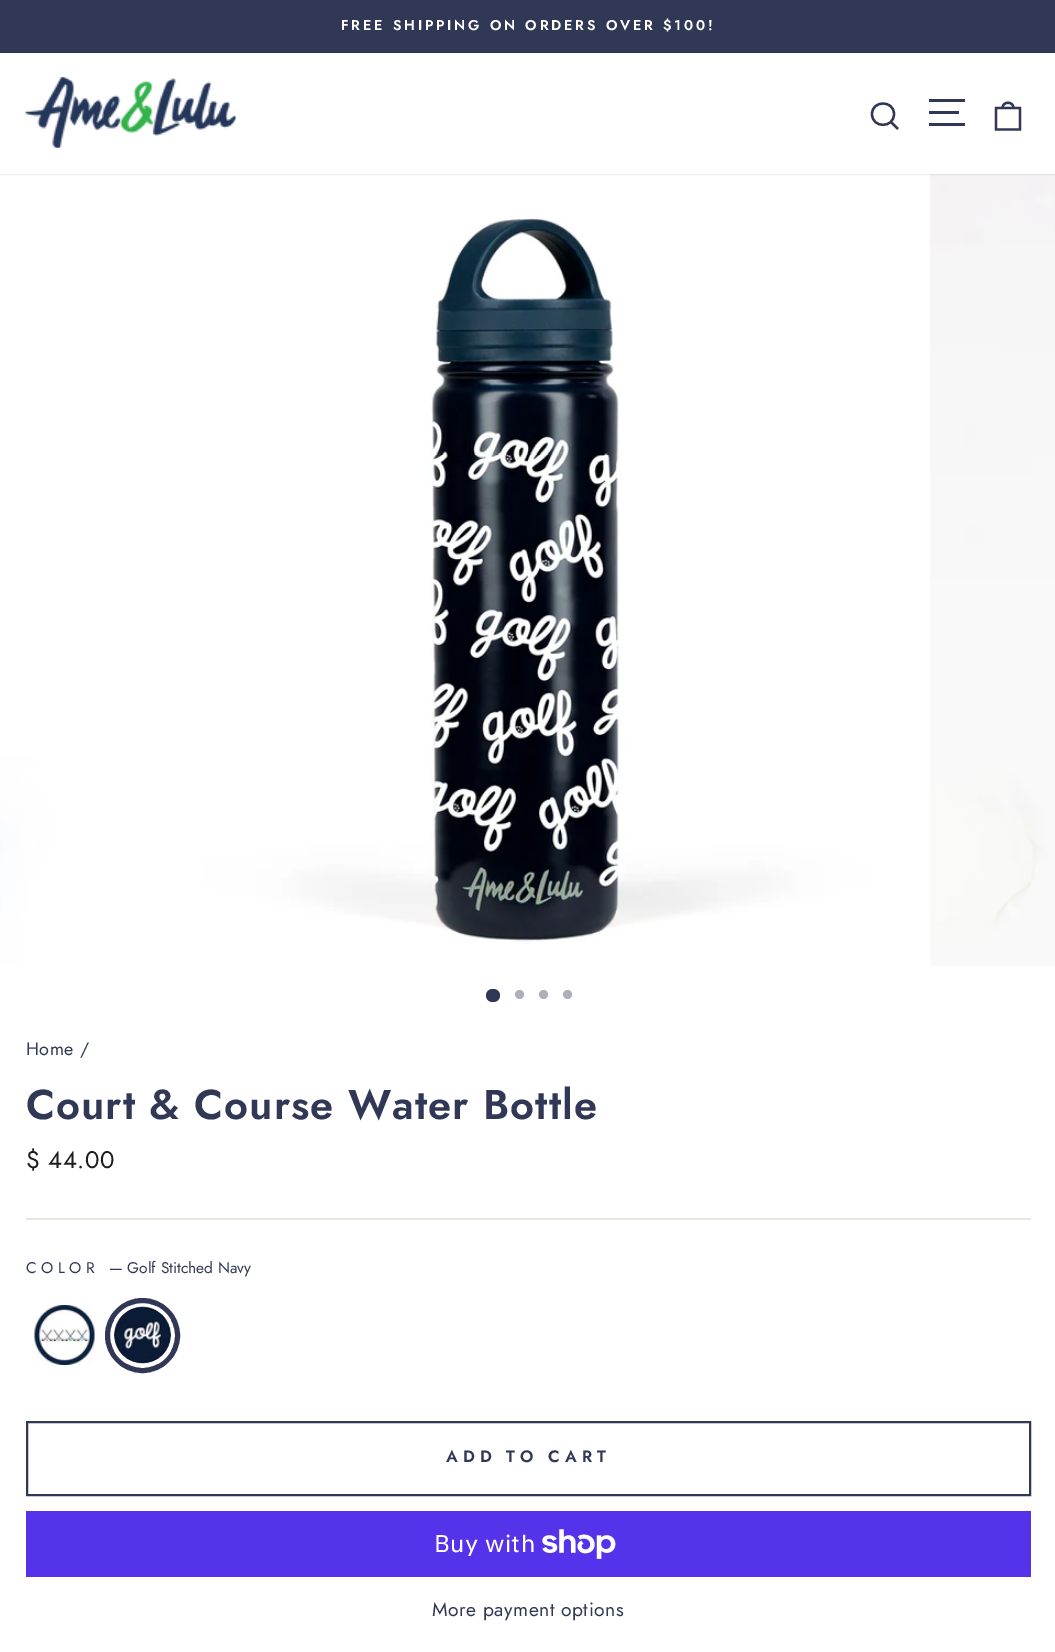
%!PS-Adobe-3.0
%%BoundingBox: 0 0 1055 1652
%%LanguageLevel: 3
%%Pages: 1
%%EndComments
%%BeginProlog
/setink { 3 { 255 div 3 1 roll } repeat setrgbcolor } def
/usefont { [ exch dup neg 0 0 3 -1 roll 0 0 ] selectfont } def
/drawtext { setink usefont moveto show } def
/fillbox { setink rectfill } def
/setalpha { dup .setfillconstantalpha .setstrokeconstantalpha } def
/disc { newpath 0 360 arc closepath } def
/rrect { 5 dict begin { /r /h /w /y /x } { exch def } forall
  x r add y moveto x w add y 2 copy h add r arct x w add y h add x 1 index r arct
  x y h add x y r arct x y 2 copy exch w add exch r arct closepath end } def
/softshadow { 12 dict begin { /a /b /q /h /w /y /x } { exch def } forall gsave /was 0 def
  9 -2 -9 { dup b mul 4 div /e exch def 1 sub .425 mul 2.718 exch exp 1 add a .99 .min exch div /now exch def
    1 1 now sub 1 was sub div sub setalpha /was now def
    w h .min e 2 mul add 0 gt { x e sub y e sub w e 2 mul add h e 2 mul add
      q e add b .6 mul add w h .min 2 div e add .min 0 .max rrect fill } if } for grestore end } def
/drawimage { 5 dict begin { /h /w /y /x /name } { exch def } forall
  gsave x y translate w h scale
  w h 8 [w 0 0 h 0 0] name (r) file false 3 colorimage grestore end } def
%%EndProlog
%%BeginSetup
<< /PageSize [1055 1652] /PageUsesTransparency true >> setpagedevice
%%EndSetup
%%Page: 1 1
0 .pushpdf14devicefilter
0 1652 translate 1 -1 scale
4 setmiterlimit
0 0 1055 1652 255 255 255 fillbox
0 0 1055 53 49 56 85 fillbox
/Jost-SemiBold 14.2 usefont
255 255 255 setink
341 30 moveto 2.85 0 (FREE SHIPPING ON ORDERS OVER $100!) ashow
(assets/img2.rgb) 0 174 126 792 drawimage
(assets/img3.rgb) 132 174 792 792 drawimage
(assets/img4.rgb) 930 174 125 792 drawimage
gsave
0 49 moveto 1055 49 lineto 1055 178 lineto 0 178 lineto closepath 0 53 moveto 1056 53 lineto 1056 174 lineto 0 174 lineto closepath eoclip newpath
0 0 0 setink
0 53 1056 121 0 1 0.2 softshadow
grestore
(assets/img1.rgb) 25 77 211 71 drawimage
49 56 85 setink
2.3 setlinewidth
894 114 moveto 894 128.5 872 128.5 872 114 curveto 872 100 894 100 894 114 curveto closepath 898 129 moveto 891 122 lineto stroke
2.8 setlinewidth
929 100.5 moveto 965 100.5 lineto 929 112.5 moveto 959 112.5 lineto 929 124.5 moveto 965 124.5 lineto stroke
2.3 setlinewidth
996 108 moveto 1020 108 lineto 1020 129.5 lineto 996 129.5 lineto closepath 1002.5 108 moveto 1002.5 101 1013.5 101 1013.5 108 curveto stroke
486 989 14 13 6.5 rrect fill
173 175 187 setink
519.5 994.5 4.5 disc fill
543.5 994.5 4.5 disc fill
567.5 994.5 4.5 disc fill
/Jost-Regular 18 usefont
49 56 85 setink
26 1055 moveto 0.5 0 (Home /) ashow
/Jost-SemiBold 41.6 usefont
26 1119 moveto 1.05 0 (Court & Course Water Bottle) ashow
/Jost-Regular 24 usefont
28 29 29 setink
26 1168 moveto 0.5 0 ($ 44.00) ashow
26 1218 1005 2 232 232 225 fillbox
/Jost-Regular 15.5 usefont
49 56 85 setink
26 1273 moveto 4.5 0 (COLOR) ashow
(— Golf Stitched Navy) 109 1273 /Jost-Regular 15.5 49 56 85 drawtext
(assets/img5.rgb) 34 1305 61 60 drawimage
5 setlinewidth
142.5 1335.5 35 disc stroke
(assets/img6.rgb) 114 1306 57 58 drawimage
2 setlinewidth
27 1422 1003 73 rectstroke
/Jost-SemiBold 16.5 usefont
446 1462 moveto 5 0 (ADD TO CART) ashow
26 1511 1005 66 84 51 235 fillbox
/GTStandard-Regular 24 usefont
255 255 255 setink
434 1552 moveto 0.5 0 (Buy with) ashow
(assets/img7.rgb) 542 1529 74 30 drawimage
/Jost-Regular 19.25 usefont
49 56 85 setink
432 1616 moveto 0.5 0 (More payment options) ashow
.poppdf14devicefilter showpage
%%EOF
